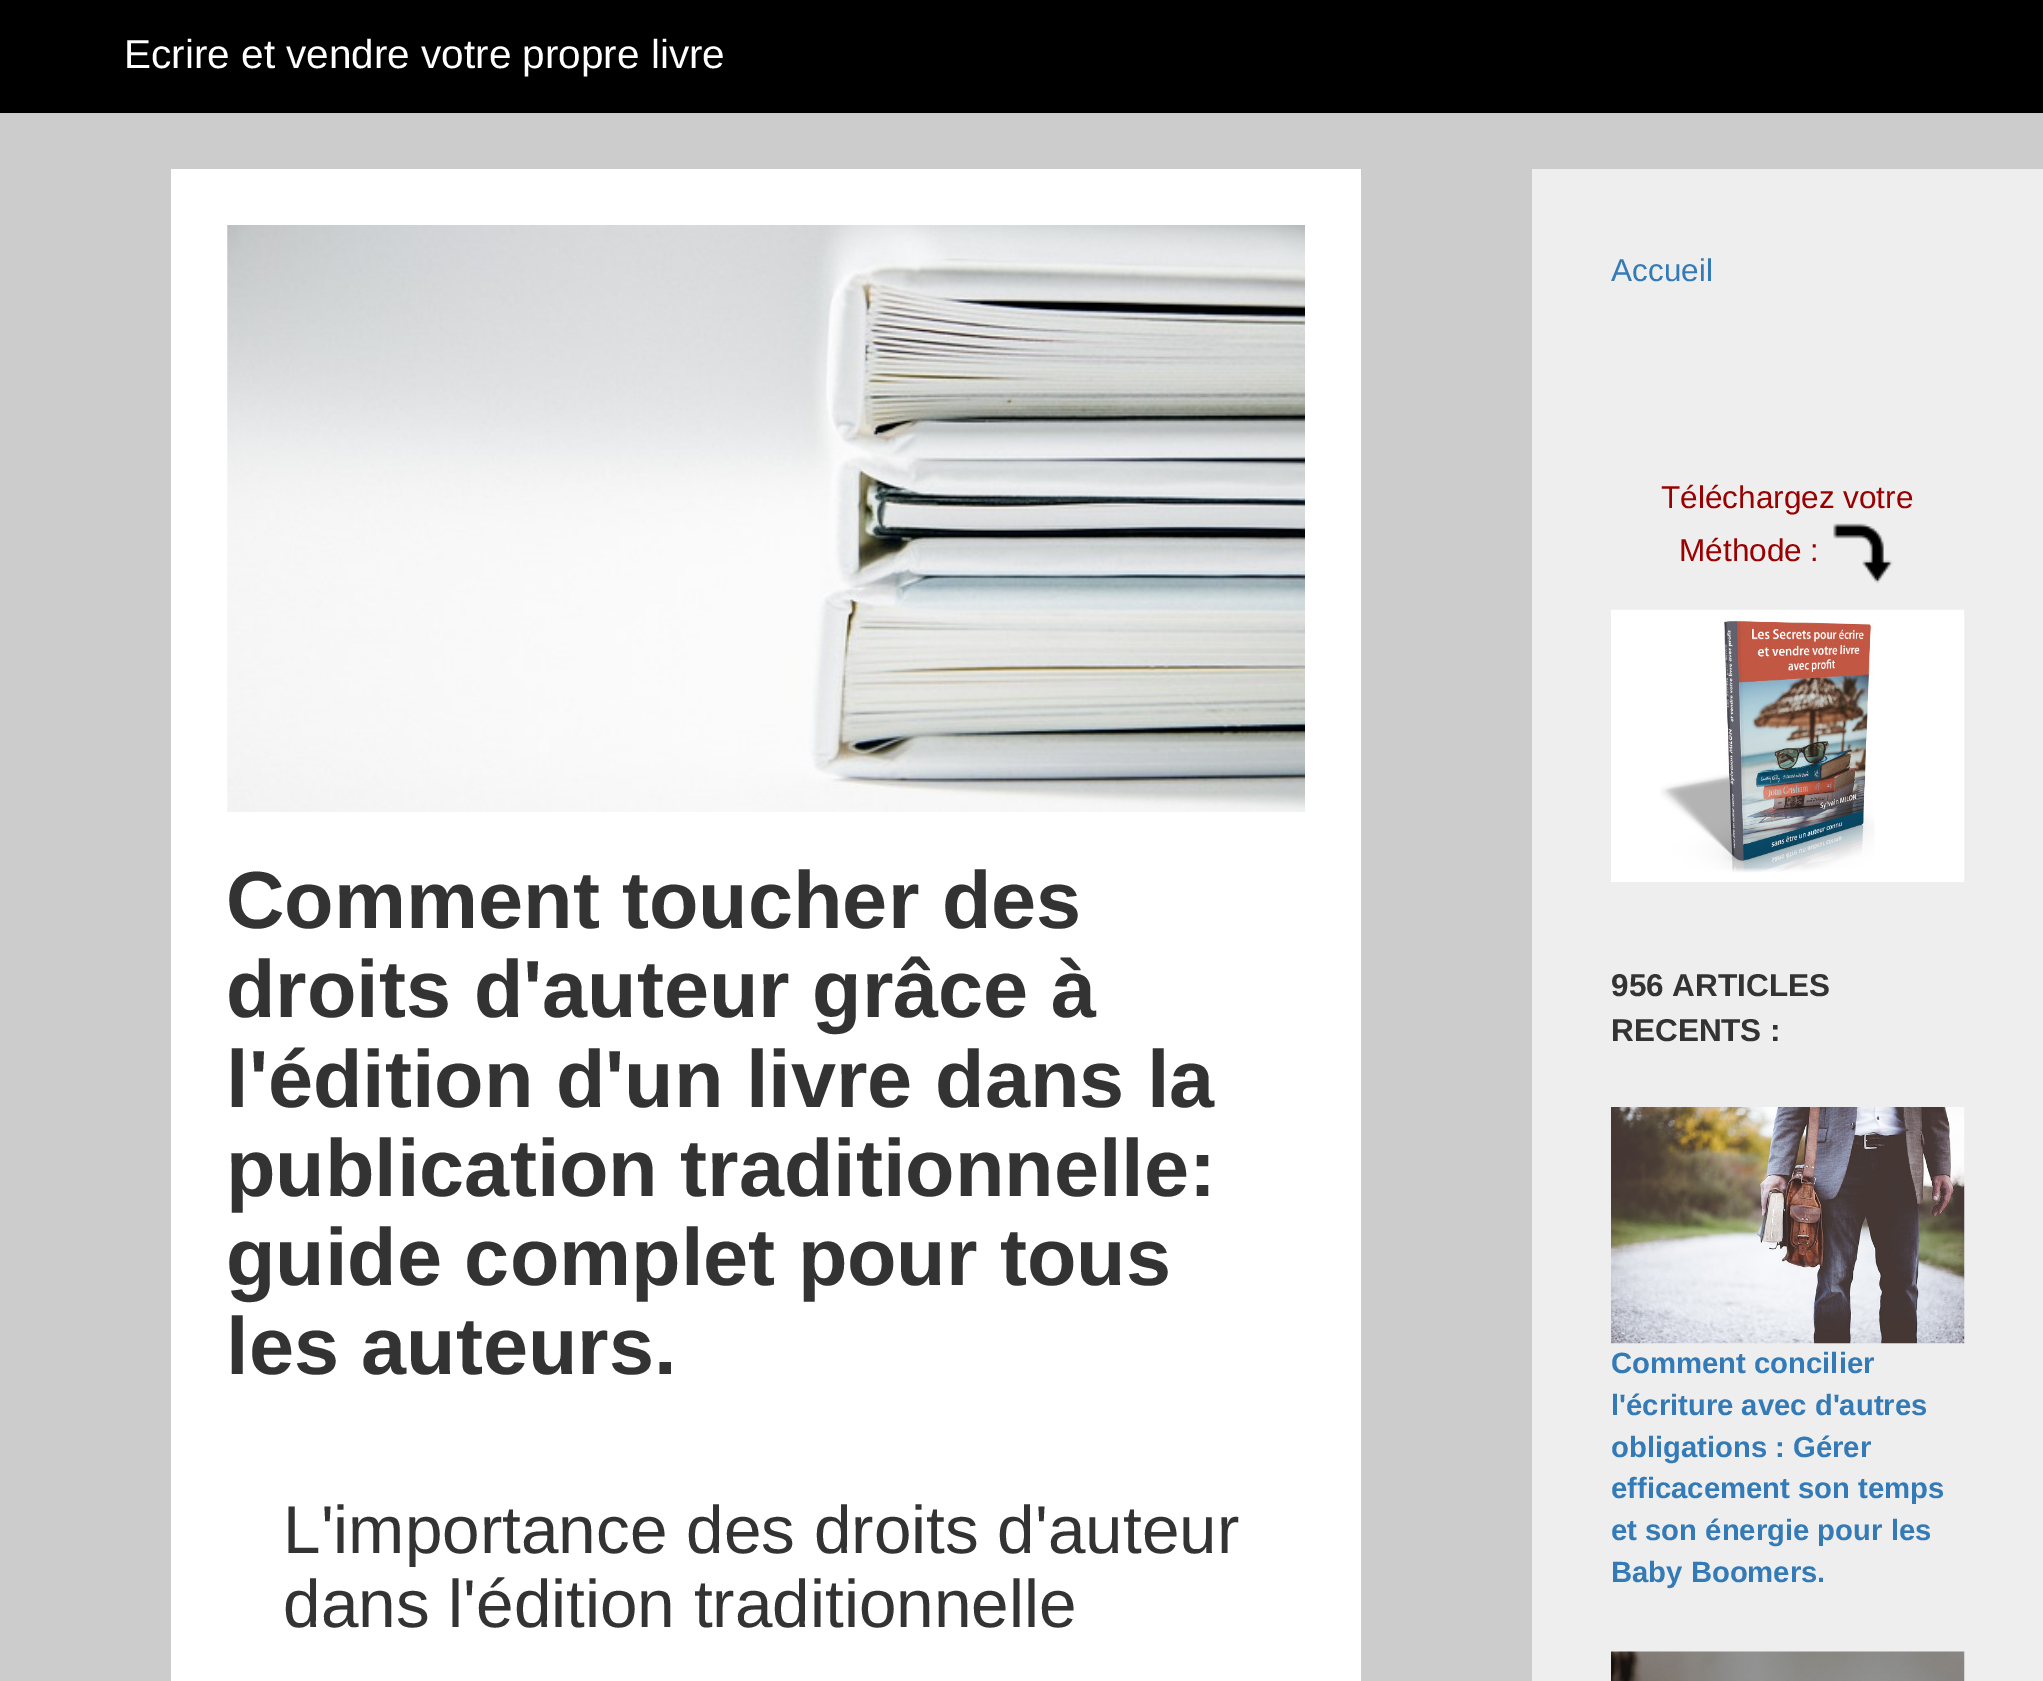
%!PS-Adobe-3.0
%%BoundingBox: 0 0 2043 1681
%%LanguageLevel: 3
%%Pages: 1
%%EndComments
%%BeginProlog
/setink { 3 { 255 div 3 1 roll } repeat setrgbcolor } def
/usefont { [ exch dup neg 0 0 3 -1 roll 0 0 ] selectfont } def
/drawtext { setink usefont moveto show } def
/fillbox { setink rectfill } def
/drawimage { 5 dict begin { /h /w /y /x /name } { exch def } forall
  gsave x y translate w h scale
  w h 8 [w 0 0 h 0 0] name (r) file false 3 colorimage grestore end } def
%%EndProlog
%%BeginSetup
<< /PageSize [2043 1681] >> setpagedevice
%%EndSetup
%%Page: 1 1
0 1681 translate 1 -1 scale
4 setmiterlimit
0 0 2043 1681 204 204 204 fillbox
0 0 2043 113 0 0 0 fillbox
(Ecrire et vendre votre propre livre) 124 68 /LiberationSans-Regular 40.5 255 255 255 drawtext
171 169 1190 1512 255 255 255 fillbox
(assets/img1.rgb) 227 225 1078 587 drawimage
(Comment toucher des) 226 928 /LiberationSans-Bold 81 51 51 51 drawtext
(droits d'auteur grâce à) 226 1017 /LiberationSans-Bold 81 51 51 51 drawtext
(l'édition d'un livre dans la) 226 1107 /LiberationSans-Bold 81 51 51 51 drawtext
(publication traditionnelle:) 226 1196 /LiberationSans-Bold 81 51 51 51 drawtext
(guide complet pour tous) 226 1285 /LiberationSans-Bold 81 51 51 51 drawtext
(les auteurs.) 226 1374 /LiberationSans-Bold 81 51 51 51 drawtext
(L'importance des droits d'auteur) 283 1553 /LiberationSans-Regular 67.5 51 51 51 drawtext
(dans l'édition traditionnelle) 283 1627 /LiberationSans-Regular 67.5 51 51 51 drawtext
1532 169 511 1512 238 238 238 fillbox
(Accueil) 1611 281 /LiberationSans-Regular 31.5 51 122 183 drawtext
(Téléchargez votre) 1661 508 /LiberationSans-Regular 31.5 153 0 0 drawtext
(Méthode :) 1679 561 /LiberationSans-Regular 31.5 153 0 0 drawtext
(assets/img2.rgb) 1833 523 60 61 drawimage
(assets/img3.rgb) 1611 609 354 273 drawimage
(956 ARTICLES) 1611 996 /LiberationSans-Bold 31.5 51 51 51 drawtext
(RECENTS :) 1611 1041 /LiberationSans-Bold 31.5 51 51 51 drawtext
(assets/img4.rgb) 1611 1107 354 237 drawimage
(Comment concilier) 1611 1373 /LiberationSans-Bold 29.25 51 122 183 drawtext
(l'écriture avec d'autres) 1611 1415 /LiberationSans-Bold 29.25 51 122 183 drawtext
(obligations : Gérer) 1611 1457 /LiberationSans-Bold 29.25 51 122 183 drawtext
(efficacement son temps) 1611 1498 /LiberationSans-Bold 29.25 51 122 183 drawtext
(et son énergie pour les) 1611 1540 /LiberationSans-Bold 29.25 51 122 183 drawtext
(Baby Boomers.) 1611 1582 /LiberationSans-Bold 29.25 51 122 183 drawtext
(assets/img5.rgb) 1611 1651 354 30 drawimage
showpage
%%EOF
